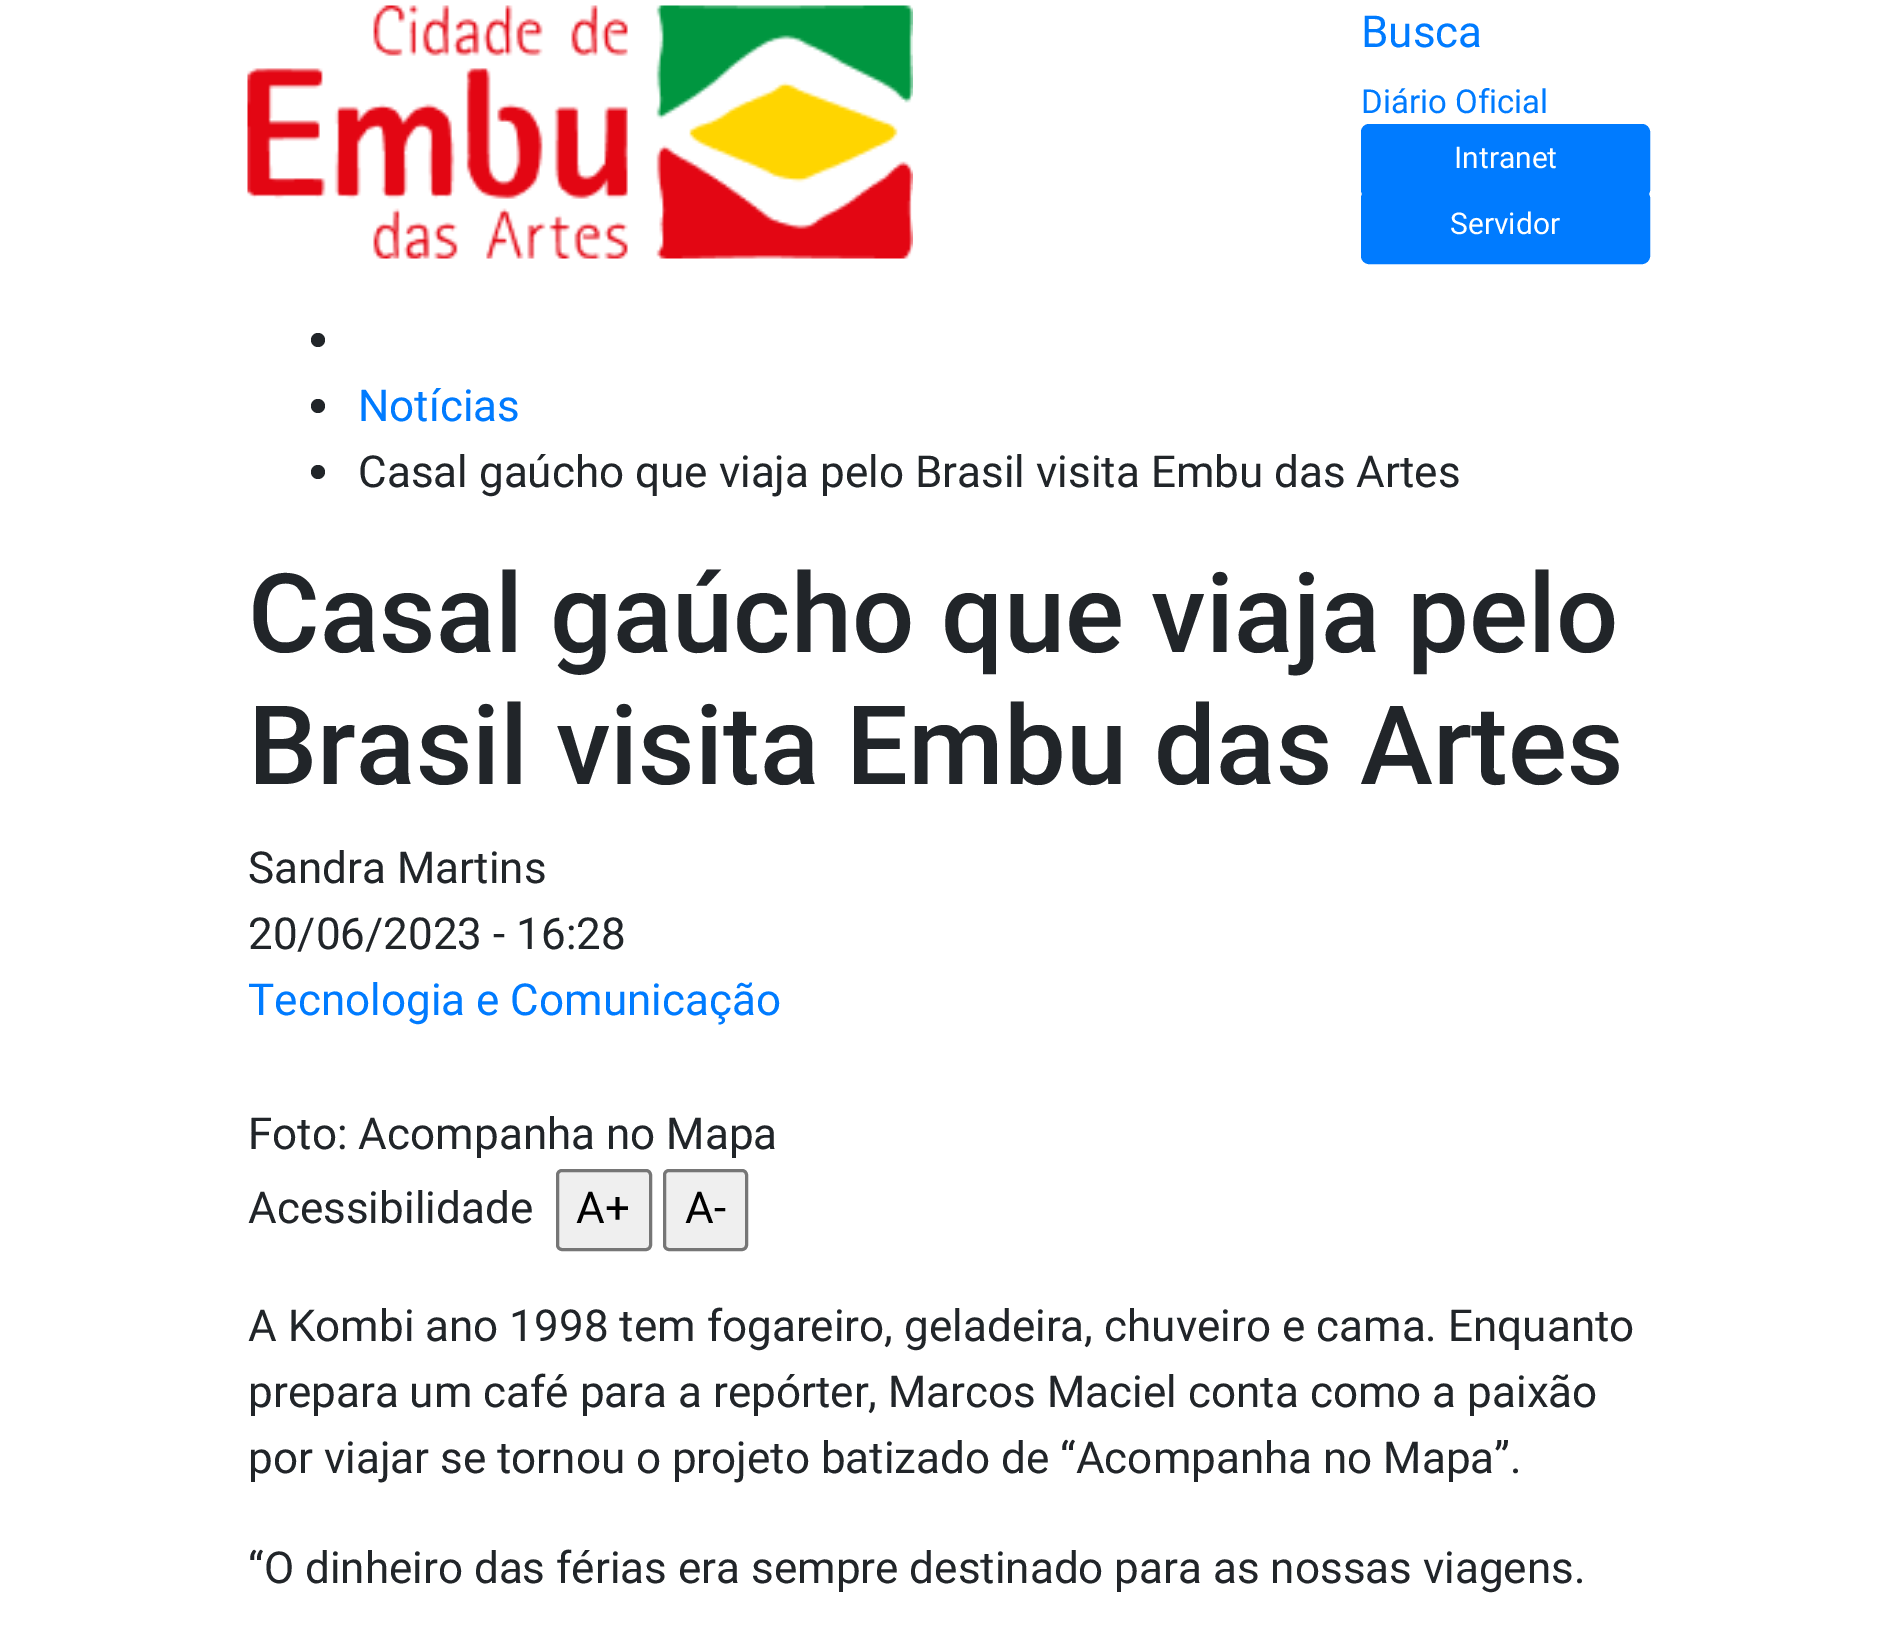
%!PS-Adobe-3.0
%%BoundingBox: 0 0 1897 1627
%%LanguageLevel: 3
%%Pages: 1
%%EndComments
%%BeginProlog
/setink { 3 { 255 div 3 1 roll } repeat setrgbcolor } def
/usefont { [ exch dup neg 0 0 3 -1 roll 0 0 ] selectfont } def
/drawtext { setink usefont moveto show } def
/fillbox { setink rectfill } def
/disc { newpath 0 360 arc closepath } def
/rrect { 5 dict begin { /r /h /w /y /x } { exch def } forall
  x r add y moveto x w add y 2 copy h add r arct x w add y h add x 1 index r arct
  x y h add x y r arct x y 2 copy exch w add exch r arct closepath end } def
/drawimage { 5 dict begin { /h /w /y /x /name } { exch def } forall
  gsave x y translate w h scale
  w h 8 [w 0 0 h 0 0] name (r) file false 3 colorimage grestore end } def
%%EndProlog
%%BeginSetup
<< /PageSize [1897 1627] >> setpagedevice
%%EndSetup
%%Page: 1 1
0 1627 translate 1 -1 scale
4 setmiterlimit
0 0 1897 1627 255 255 255 fillbox
(assets/img1.rgb) 247 5 666 254 drawimage
(Busca) 1361 47 /Roboto-Regular 44 0 123 255 drawtext
(Diário Oficial) 1361 113 /Roboto-Regular 33 0 123 255 drawtext
1362.5 125.5 286 71 6.5 rrect gsave fill grestore
3 setlinewidth
stroke
(Intranet) 1454 168 /Roboto-Regular 30 255 255 255 drawtext
0 123 255 setink
1362.5 191.5 286 71 6.5 rrect gsave fill grestore
stroke
(Servidor) 1450 234 /Roboto-Regular 30 255 255 255 drawtext
33 37 41 setink
318 340 7 disc fill
318 406 7 disc fill
(Notícias) 358 421 /Roboto-Regular 44 0 123 255 drawtext
33 37 41 setink
318 472 7 disc fill
(Casal gaúcho que viaja pelo Brasil visita Embu das Artes) 358 487 /Roboto-Regular 44 33 37 41 drawtext
(Casal gaúcho que viaja pelo) 248 652 /Roboto-Medium 110 33 37 41 drawtext
(Brasil visita Embu das Artes) 248 784 /Roboto-Medium 110 33 37 41 drawtext
(Sandra Martins) 248 883 /Roboto-Regular 44 33 37 41 drawtext
(20/06/2023 - 16:28) 248 949 /Roboto-Regular 44 33 37 41 drawtext
(Tecnologia e Comunicação) 248 1015 /Roboto-Regular 44 0 123 255 drawtext
(Foto: Acompanha no Mapa) 248 1149 /Roboto-Regular 44 33 37 41 drawtext
(Acessibilidade) 248 1223 /Roboto-Regular 44 33 37 41 drawtext
239 239 239 setink
557.5 1170.5 93 79 4.5 rrect gsave fill grestore
118 118 118 setink
stroke
(A+) 576 1223 /Roboto-Regular 44 0 0 0 drawtext
239 239 239 setink
664.5 1170.5 82 79 4.5 rrect gsave fill grestore
118 118 118 setink
stroke
(A-) 685 1223 /Roboto-Regular 44 0 0 0 drawtext
(A Kombi ano 1998 tem fogareiro, geladeira, chuveiro e cama. Enquanto) 248 1341 /Roboto-Regular 44 33 37 41 drawtext
(prepara um café para a repórter, Marcos Maciel conta como a paixão) 248 1407 /Roboto-Regular 44 33 37 41 drawtext
(por viajar se tornou o projeto batizado de “Acompanha no Mapa”.) 248 1473 /Roboto-Regular 44 33 37 41 drawtext
(“O dinheiro das férias era sempre destinado para as nossas viagens.) 248 1583 /Roboto-Regular 44 33 37 41 drawtext
showpage
%%EOF
